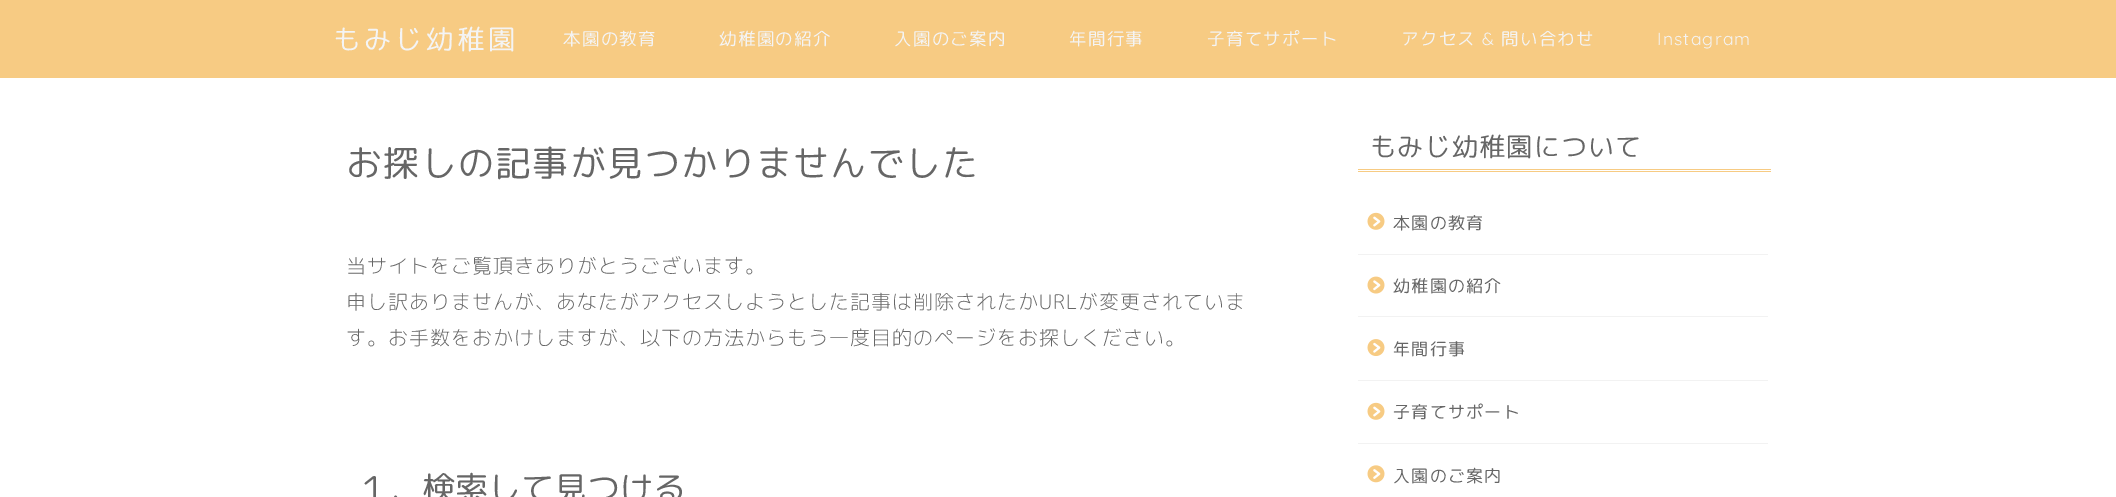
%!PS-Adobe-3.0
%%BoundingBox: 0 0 2116 497
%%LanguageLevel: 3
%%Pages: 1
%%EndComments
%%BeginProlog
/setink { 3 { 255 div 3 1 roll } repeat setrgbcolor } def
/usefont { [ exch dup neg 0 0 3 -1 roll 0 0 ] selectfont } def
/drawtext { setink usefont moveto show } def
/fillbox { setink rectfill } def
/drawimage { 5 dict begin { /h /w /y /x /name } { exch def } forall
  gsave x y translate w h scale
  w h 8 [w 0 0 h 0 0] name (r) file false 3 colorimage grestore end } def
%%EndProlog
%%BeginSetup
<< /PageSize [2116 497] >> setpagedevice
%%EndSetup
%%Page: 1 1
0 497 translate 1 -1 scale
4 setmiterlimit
0 0 2116 497 255 255 255 fillbox
0 0 2116 78 247 203 131 fillbox
/RoundedMplus1c-Regular 27.25 usefont
244 244 244 setink
333 49 moveto 3.75 0 (もみじ幼稚園) ashow
/RoundedMplus1c-Regular 17.5 usefont
563 45 moveto 1.25 0 (本園の教育) ashow
719 45 moveto 1.25 0 (幼稚園の紹介) ashow
894 45 moveto 1.25 0 (入園のご案内) ashow
1069 45 moveto 1.25 0 (年間行事) ashow
1207 45 moveto 1.25 0 (子育てサポート) ashow
1401 45 moveto 1.25 0 (アクセス) ashow
/Quicksand-Light 17.5 usefont
1482 45 moveto 1.25 0 (&) ashow
/RoundedMplus1c-Regular 17.5 usefont
1501 45 moveto 1.25 0 (問い合わせ) ashow
/Quicksand-Light 17.5 usefont
1657 45 moveto 1.25 0 (Instagram) ashow
/RoundedMplus1c-Regular 36 usefont
102 102 102 setink
346 176 moveto 1.25 0 (お探しの記事が見つかりませんでした) ashow
/RoundedMplus1c-Light 20 usefont
346 273 moveto 1 0 (当サイトをご覧頂きありがとうございます。) ashow
346 309 moveto 1 0 (申し訳ありませんが、あなたがアクセスしようとした記事は削除されたかURLが変更されていま) ashow
346 345 moveto 1 0 (す。お手数をおかけしますが、以下の方法からもう一度目的のページをお探しください。) ashow
(１．検索して見つける) 356 500 /RoundedMplus1c-Regular 33 102 102 102 drawtext
1358 169 413 1 247 203 131 fillbox
1358 171 413 1 247 203 131 fillbox
/RoundedMplus1c-Regular 26 usefont
102 102 102 setink
1370 156 moveto 1.25 0 (もみじ幼稚園について) ashow
1358 254 410 1 242 242 242 fillbox
(assets/img1.rgb) 1367 212 18 18 drawimage
/RoundedMplus1c-Regular 17 usefont
102 102 102 setink
1393 229 moveto 1.25 0 (本園の教育) ashow
1358 316 410 1 242 242 242 fillbox
(assets/img2.rgb) 1367 276 18 18 drawimage
102 102 102 setink
1393 292 moveto 1.25 0 (幼稚園の紹介) ashow
1358 380 410 1 242 242 242 fillbox
(assets/img3.rgb) 1367 339 18 17 drawimage
102 102 102 setink
1393 355 moveto 1.25 0 (年間行事) ashow
1358 443 410 1 242 242 242 fillbox
(assets/img1.rgb) 1367 402 18 18 drawimage
102 102 102 setink
1393 418 moveto 1.25 0 (子育てサポート) ashow
(assets/img4.rgb) 1367 465 18 18 drawimage
1393 482 moveto 1.25 0 (入園のご案内) ashow
showpage
%%EOF
